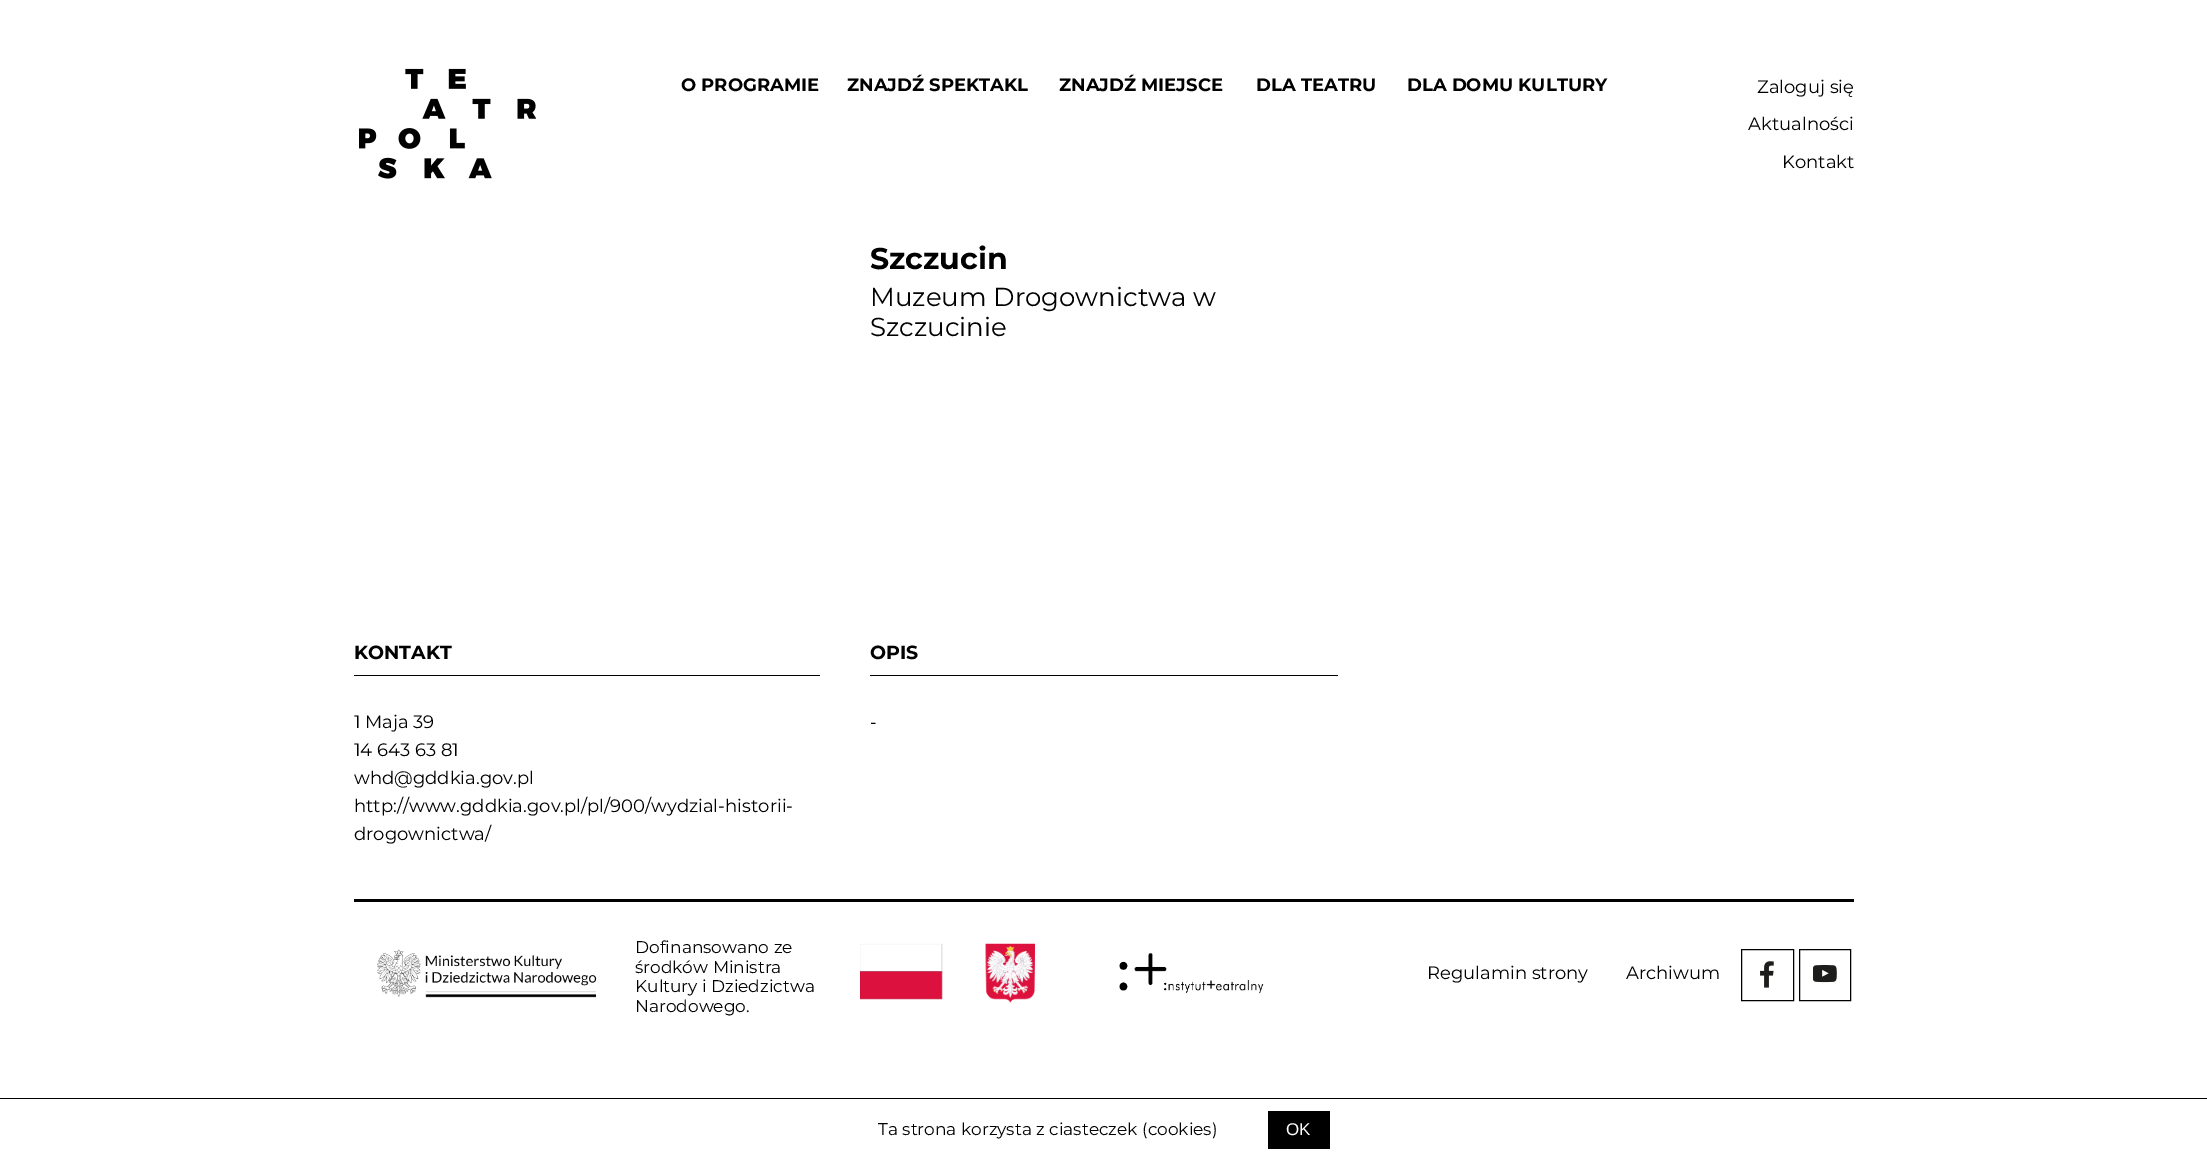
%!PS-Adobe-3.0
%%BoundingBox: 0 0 2207 1160
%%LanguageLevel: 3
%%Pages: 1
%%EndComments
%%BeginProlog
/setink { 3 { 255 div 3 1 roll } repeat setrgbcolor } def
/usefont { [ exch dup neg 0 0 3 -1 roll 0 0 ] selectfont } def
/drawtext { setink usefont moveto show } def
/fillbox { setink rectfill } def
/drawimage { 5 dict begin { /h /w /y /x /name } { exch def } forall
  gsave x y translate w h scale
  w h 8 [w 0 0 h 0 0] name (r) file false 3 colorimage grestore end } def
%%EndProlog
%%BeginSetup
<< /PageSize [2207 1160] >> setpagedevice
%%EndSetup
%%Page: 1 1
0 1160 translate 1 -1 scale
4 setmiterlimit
0 0 2207 1160 255 255 255 fillbox
(assets/img1.rgb) 359 68 177 111 drawimage
(O PROGRAMIE) 681 91 /Montserrat-Bold 18 0 0 0 drawtext
(ZNAJDŹ SPEKTAKL) 847 91 /Montserrat-Bold 18 0 0 0 drawtext
(ZNAJDŹ MIEJSCE) 1059 91 /Montserrat-Bold 18 0 0 0 drawtext
(DLA TEATRU) 1256 91 /Montserrat-Bold 18 0 0 0 drawtext
(DLA DOMU KULTURY) 1407 91 /Montserrat-Bold 18 0 0 0 drawtext
(Zaloguj się) 1757 93 /Montserrat-Regular 18 0 0 0 drawtext
(Aktualności) 1748 130 /Montserrat-Regular 18 0 0 0 drawtext
(Kontakt) 1782 168 /Montserrat-Regular 18 0 0 0 drawtext
(Szczucin) 870 269 /Montserrat-Bold 30 0 0 0 drawtext
(Muzeum Drogownictwa w) 870 306 /Montserrat-Regular 26 0 0 0 drawtext
(Szczucinie) 870 336 /Montserrat-Regular 26 0 0 0 drawtext
354 675 466 1 0 0 0 fillbox
(KONTAKT) 354 659 /Montserrat-Bold 19 0 0 0 drawtext
(1 Maja 39) 354 728 /Montserrat-Regular 18 0 0 0 drawtext
(14 643 63 81) 354 756 /Montserrat-Regular 18 0 0 0 drawtext
(whd@gddkia.gov.pl) 354 784 /Montserrat-Regular 18 0 0 0 drawtext
(http://www.gddkia.gov.pl/pl/900/wydzial-historii-) 354 812 /Montserrat-Regular 18 0 0 0 drawtext
(drogownictwa/) 354 840 /Montserrat-Regular 18 0 0 0 drawtext
870 675 468 1 0 0 0 fillbox
(OPIS) 870 659 /Montserrat-Bold 19 0 0 0 drawtext
(-) 870 728 /Montserrat-Regular 17 0 0 0 drawtext
354 899 1500 3 0 0 0 fillbox
(assets/img2.rgb) 377 949 220 49 drawimage
(Dofinansowano ze) 635 953 /Montserrat-Regular 17 0 0 0 drawtext
(środków Ministra) 635 973 /Montserrat-Regular 17 0 0 0 drawtext
(Kultury i Dziedzictwa) 635 992 /Montserrat-Regular 17 0 0 0 drawtext
(Narodowego.) 635 1012 /Montserrat-Regular 17 0 0 0 drawtext
(assets/img3.rgb) 860 943 175 60 drawimage
(assets/img4.rgb) 1119 953 145 41 drawimage
(Regulamin strony) 1427 979 /Montserrat-Regular 18 0 0 0 drawtext
(Archiwum) 1626 979 /Montserrat-Regular 18 0 0 0 drawtext
(assets/img5.rgb) 1760 961 14 27 drawimage
1741.5 949.5 52 51 rectstroke
(assets/img6.rgb) 1813 965 24 18 drawimage
1799.5 949.5 51 51 rectstroke
0 1098 2207 1 0 0 0 fillbox
(Ta strona korzysta z ciasteczek \(cookies\)) 878 1135 /Montserrat-Regular 17 0 0 0 drawtext
1268 1111 62 38 0 0 0 fillbox
(OK) 1286 1135 /LiberationSans-Regular 17 255 255 255 drawtext
showpage
%%EOF
